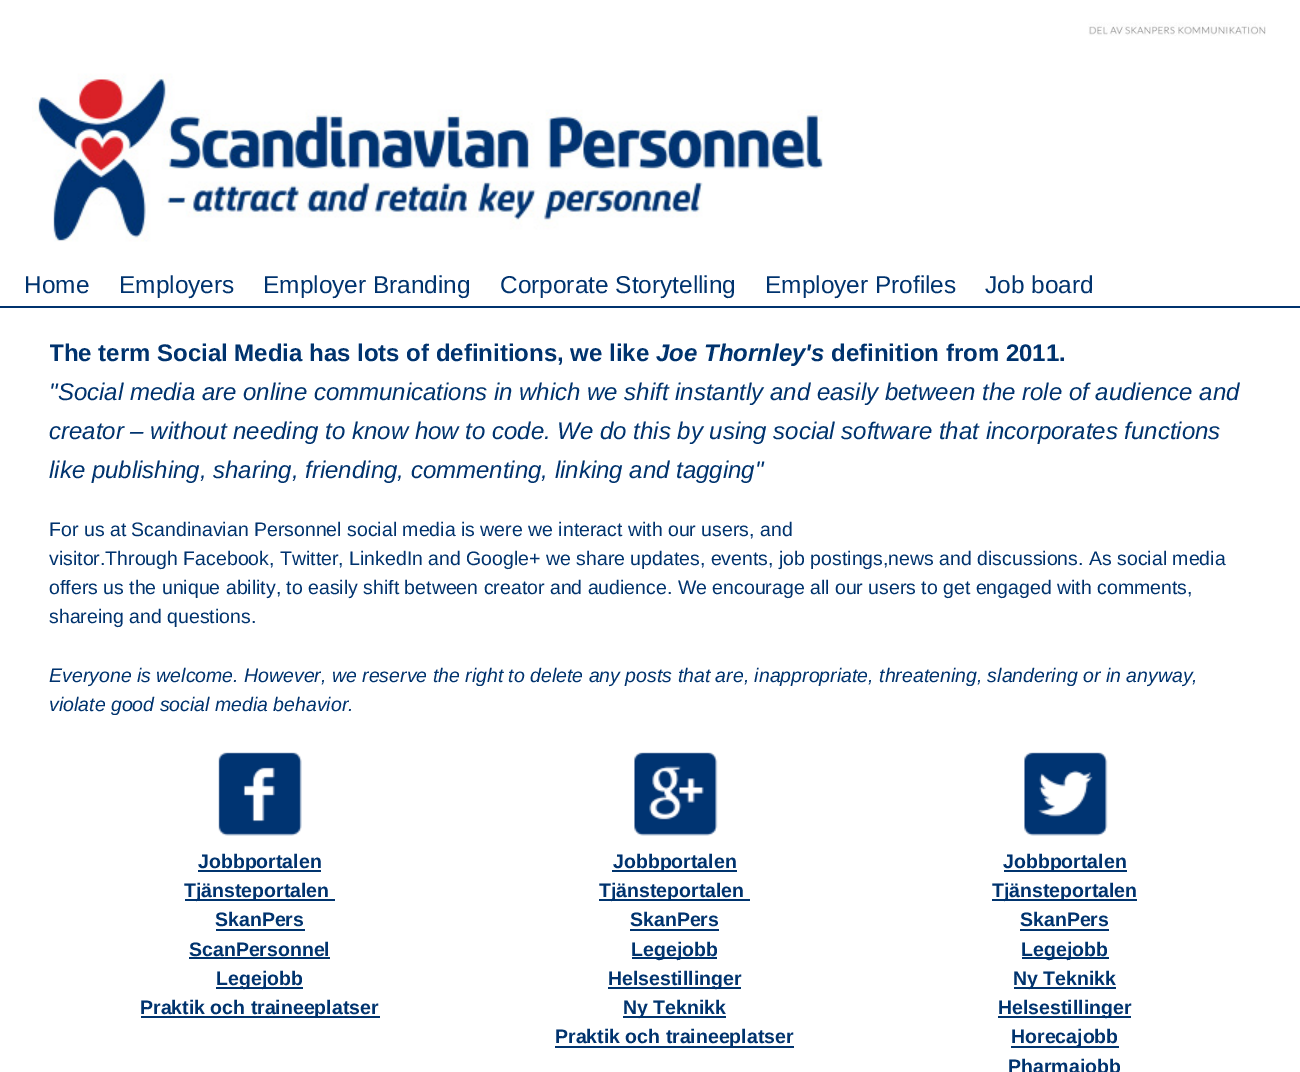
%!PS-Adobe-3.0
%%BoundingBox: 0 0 1300 1072
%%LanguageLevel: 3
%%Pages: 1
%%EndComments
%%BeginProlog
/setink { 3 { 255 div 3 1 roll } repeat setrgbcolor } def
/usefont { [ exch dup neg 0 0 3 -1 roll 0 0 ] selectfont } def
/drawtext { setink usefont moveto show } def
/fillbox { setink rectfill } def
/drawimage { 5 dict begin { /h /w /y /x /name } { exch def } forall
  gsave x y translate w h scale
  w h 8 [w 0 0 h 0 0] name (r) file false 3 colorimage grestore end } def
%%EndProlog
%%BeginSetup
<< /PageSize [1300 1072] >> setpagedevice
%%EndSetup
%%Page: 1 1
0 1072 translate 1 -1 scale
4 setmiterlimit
0 0 1300 1072 255 255 255 fillbox
(assets/img1.rgb) 1088 22 178 14 drawimage
(assets/img2.rgb) 32 73 791 169 drawimage
(Home) 24 293 /LiberationSans-Regular 24.4 0 51 110 drawtext
(Employers) 119 293 /LiberationSans-Regular 24.4 0 51 110 drawtext
(Employer Branding) 263 293 /LiberationSans-Regular 24.4 0 51 110 drawtext
(Corporate Storytelling) 500 293 /LiberationSans-Regular 24.4 0 51 110 drawtext
(Employer Profiles) 765 293 /LiberationSans-Regular 24.4 0 51 110 drawtext
(Job board) 985 293 /LiberationSans-Regular 24.4 0 51 110 drawtext
0 306 1300 2 0 51 110 fillbox
gsave
50 333 1201 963 rectclip
(The term Social Media has lots of definitions, we like) 49 361 /LiberationSans-Bold 24 0 51 110 drawtext
grestore
(Joe Thornley's) 656 361 /LiberationSans-BoldItalic 24 0 51 110 drawtext
(definition from 2011.) 831 361 /LiberationSans-Bold 24 0 51 110 drawtext
("Social media are online communications in which we shift instantly and easily between the role of audience and) 49 400 /LiberationSans-Italic 24 0 51 110 drawtext
(creator – without needing to know how to code. We do this by using social software that incorporates functions) 49 439 /LiberationSans-Italic 24 0 51 110 drawtext
(like publishing, sharing, friending, commenting, linking and tagging") 49 478 /LiberationSans-Italic 24 0 51 110 drawtext
(For us at Scandinavian Personnel social media is were we interact with our users, and) 49 536 /LiberationSans-Regular 19.5 0 51 110 drawtext
(visitor.Through Facebook, Twitter, LinkedIn and Google+ we share updates, events, job postings,news and discussions. As social media) 49 565 /LiberationSans-Regular 19.5 0 51 110 drawtext
(offers us the unique ability, to easily shift between creator and audience. We encourage all our users to get engaged with comments,) 49 594 /LiberationSans-Regular 19.5 0 51 110 drawtext
(shareing and questions.) 49 623 /LiberationSans-Regular 19.5 0 51 110 drawtext
(Everyone is welcome. However, we reserve the right to delete any posts that are, inappropriate, threatening, slandering or in anyway,) 49 682 /LiberationSans-Italic 19.5 0 51 110 drawtext
(violate good social media behavior.) 49 711 /LiberationSans-Italic 19.5 0 51 110 drawtext
(assets/img3.rgb) 218 752 84 84 drawimage
198 870 123 2 0 52 110 fillbox
(Jobbportalen) 198 868 /LiberationSans-Bold 19.5 0 51 110 drawtext
185 899 150 2 0 52 110 fillbox
(Tjänsteportalen) 184 897 /LiberationSans-Bold 19.5 0 51 110 drawtext
(SkanPers) 215 926 /LiberationSans-Bold 19.5 0 51 110 drawtext
216 929 89 2 0 52 110 fillbox
(ScanPersonnel) 189 956 /LiberationSans-Bold 19.5 0 51 110 drawtext
189 957 141 2 0 52 110 fillbox
216 987 87 2 0 52 110 fillbox
(Legejobb) 216 985 /LiberationSans-Bold 19.5 0 51 110 drawtext
141 1016 239 2 0 52 110 fillbox
(Praktik och traineeplatser) 140 1014 /LiberationSans-Bold 19.5 0 51 110 drawtext
(assets/img4.rgb) 634 752 84 84 drawimage
612 870 125 2 0 52 110 fillbox
(Jobbportalen) 613 868 /LiberationSans-Bold 19.5 0 51 110 drawtext
599 899 151 2 0 52 110 fillbox
(Tjänsteportalen) 599 897 /LiberationSans-Bold 19.5 0 51 110 drawtext
(SkanPers) 630 926 /LiberationSans-Bold 19.5 0 51 110 drawtext
630 929 89 2 0 52 110 fillbox
632 957 85 2 0 52 110 fillbox
(Legejobb) 631 956 /LiberationSans-Bold 19.5 0 51 110 drawtext
608 987 133 2 0 52 110 fillbox
(Helsestillinger) 608 985 /LiberationSans-Bold 19.5 0 51 110 drawtext
623 1016 103 2 0 52 110 fillbox
(Ny Teknikk) 623 1014 /LiberationSans-Bold 19.5 0 51 110 drawtext
555 1046 239 2 0 52 110 fillbox
(Praktik och traineeplatser) 555 1043 /LiberationSans-Bold 19.5 0 51 110 drawtext
(assets/img5.rgb) 1024 752 84 84 drawimage
1004 870 123 2 0 52 110 fillbox
(Jobbportalen) 1003 868 /LiberationSans-Bold 19.5 0 51 110 drawtext
992 899 145 2 0 52 110 fillbox
(Tjänsteportalen) 992 897 /LiberationSans-Bold 19.5 0 51 110 drawtext
(SkanPers) 1020 926 /LiberationSans-Bold 19.5 0 51 110 drawtext
1020 929 89 2 0 52 110 fillbox
1022 957 87 2 0 52 110 fillbox
(Legejobb) 1021 956 /LiberationSans-Bold 19.5 0 51 110 drawtext
1014 987 102 2 0 52 110 fillbox
(Ny Teknikk) 1013 985 /LiberationSans-Bold 19.5 0 51 110 drawtext
998 1016 133 2 0 52 110 fillbox
(Helsestillinger) 998 1014 /LiberationSans-Bold 19.5 0 51 110 drawtext
1011 1046 108 2 0 52 110 fillbox
(Horecajobb) 1011 1043 /LiberationSans-Bold 19.5 0 51 110 drawtext
(Pharmajobb) 1008 1073 /LiberationSans-Bold 19.5 0 51 110 drawtext
showpage
%%EOF
